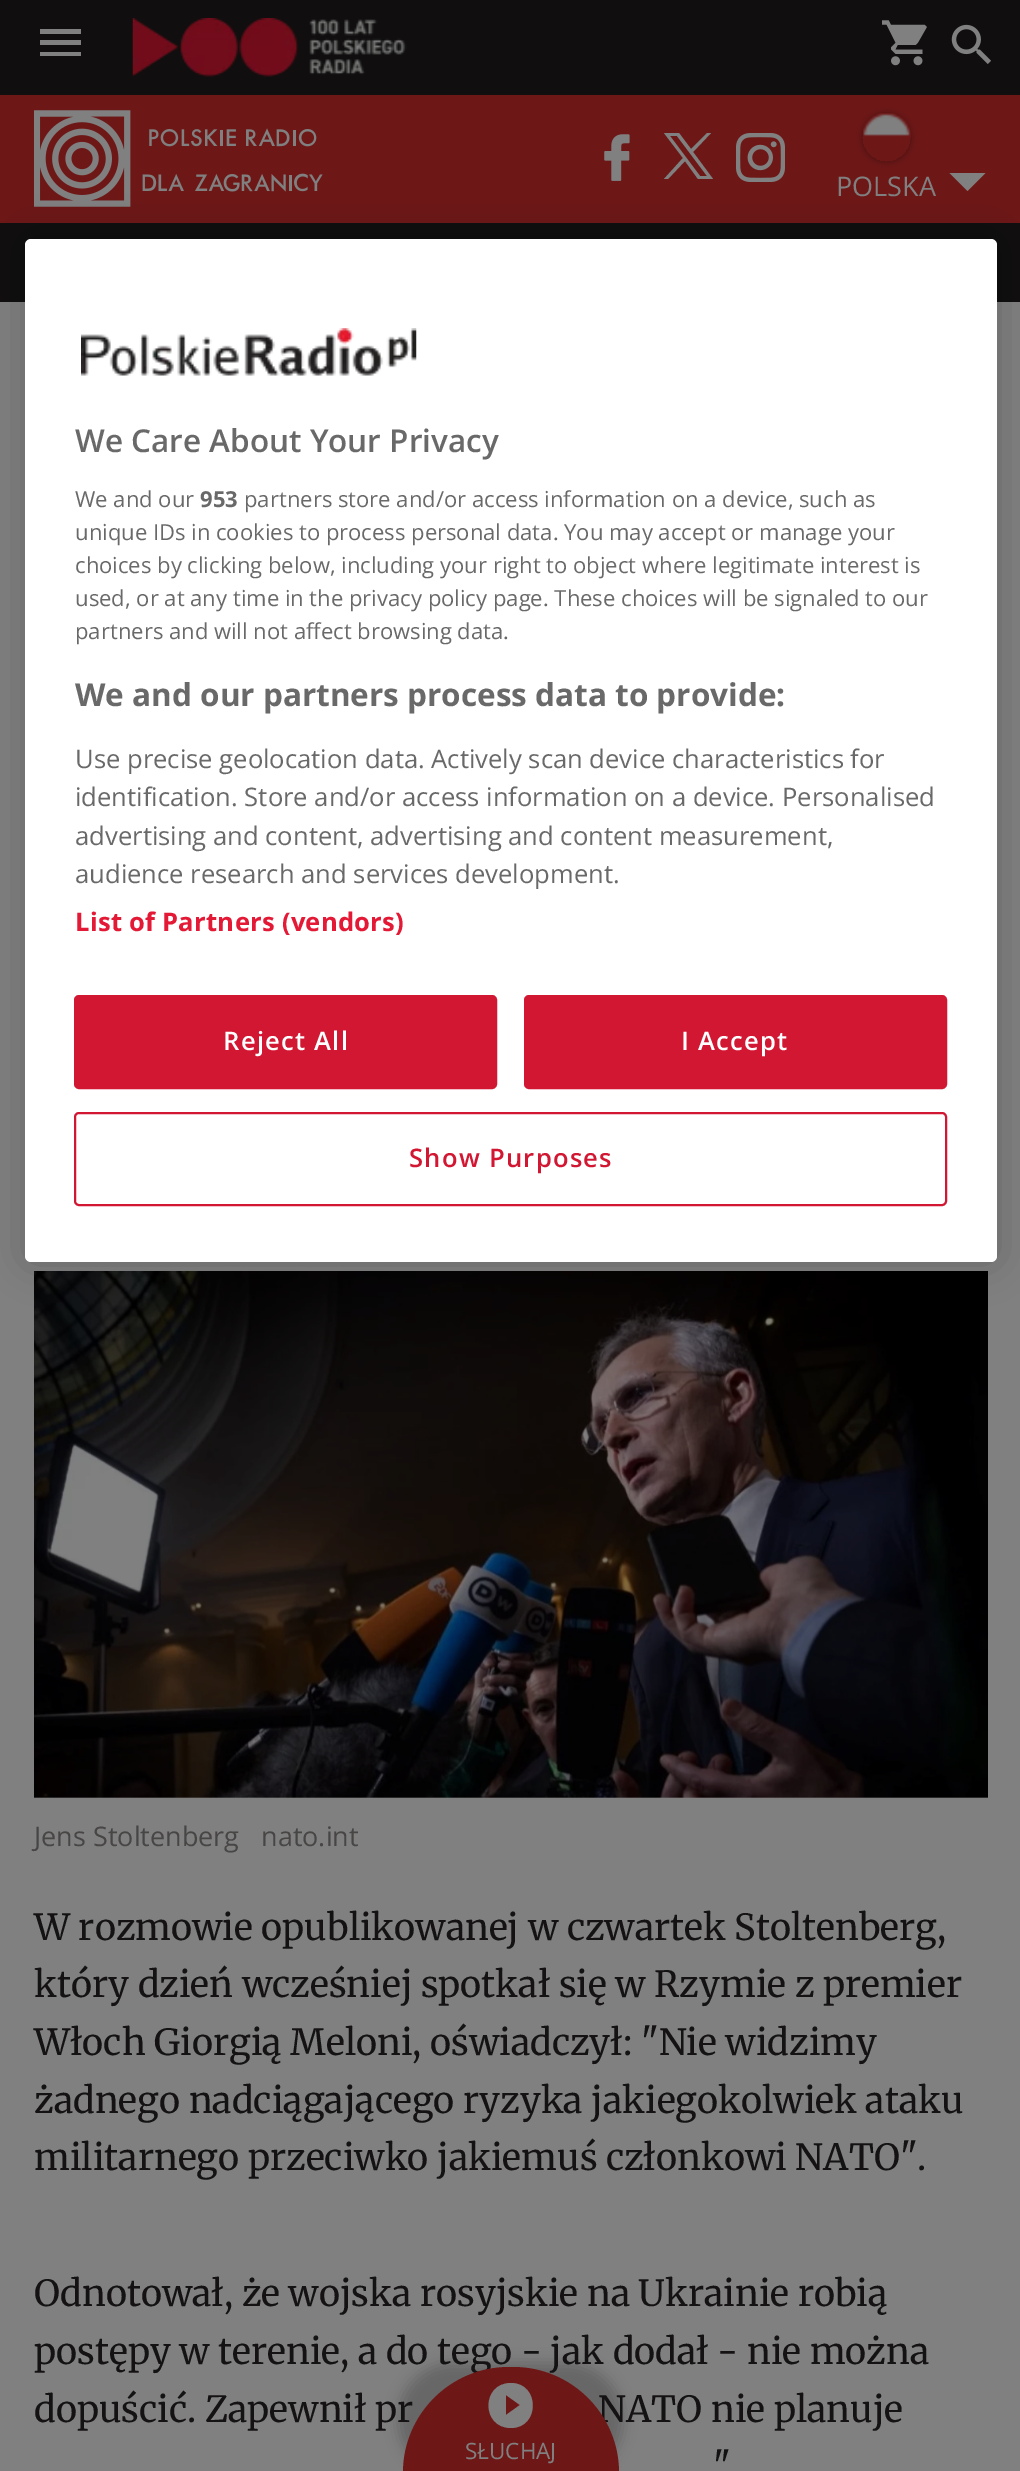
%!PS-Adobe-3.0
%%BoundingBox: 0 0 1020 2471
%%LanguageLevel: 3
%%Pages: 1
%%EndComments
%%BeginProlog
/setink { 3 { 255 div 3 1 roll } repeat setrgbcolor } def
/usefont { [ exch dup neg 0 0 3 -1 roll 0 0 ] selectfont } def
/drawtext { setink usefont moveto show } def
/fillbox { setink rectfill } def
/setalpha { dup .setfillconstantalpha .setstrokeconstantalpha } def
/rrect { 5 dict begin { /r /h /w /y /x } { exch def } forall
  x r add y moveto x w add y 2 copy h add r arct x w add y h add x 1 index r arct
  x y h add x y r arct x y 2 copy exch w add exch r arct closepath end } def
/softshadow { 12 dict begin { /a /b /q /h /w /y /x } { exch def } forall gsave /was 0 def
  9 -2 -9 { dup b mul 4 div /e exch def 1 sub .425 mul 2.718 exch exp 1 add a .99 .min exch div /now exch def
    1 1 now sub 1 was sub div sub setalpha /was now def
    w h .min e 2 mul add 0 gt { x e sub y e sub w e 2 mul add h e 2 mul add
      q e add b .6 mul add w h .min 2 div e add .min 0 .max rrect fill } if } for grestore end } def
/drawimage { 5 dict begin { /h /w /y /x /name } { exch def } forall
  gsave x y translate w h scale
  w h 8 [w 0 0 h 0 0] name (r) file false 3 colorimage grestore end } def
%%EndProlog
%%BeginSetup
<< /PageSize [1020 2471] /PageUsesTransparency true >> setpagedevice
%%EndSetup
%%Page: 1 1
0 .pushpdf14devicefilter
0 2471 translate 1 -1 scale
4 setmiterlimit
0 0 1020 2471 128 128 128 fillbox
0 223 1020 79 16 14 14 fillbox
0 0 1020 95 16 14 14 fillbox
128 128 128 setink
40 56 moveto 81 56 lineto 81 52 lineto 40 52 lineto closepath 40 45 moveto 81 45 lineto 81 40 lineto 40 40 lineto closepath 40 29 moveto 40 34 lineto 81 34 lineto 81 29 lineto closepath fill
(assets/img1.rgb) 132 18 275 59 drawimage
(assets/img2.rgb) 882 20 45 46 drawimage
(assets/img3.rgb) 951 24 40 40 drawimage
0 95 1020 128 110 23 23 fillbox
(assets/img4.rgb) 34 110 289 97 drawimage
(assets/img5.rgb) 604 134 26 47 drawimage
128 128 128 setink
664 133 moveto 683 158 lineto 664 179 lineto 668 179 lineto 685 161 lineto 698 179 lineto 713 179 lineto 693 152 lineto 711 133 lineto 707 133 lineto 691 149 lineto 679 133 lineto closepath 670 136 moveto 677 136 lineto 707 176 lineto 700 176 lineto closepath fill
(assets/img6.rgb) 736 133 49 49 drawimage
gsave
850 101 moveto 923 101 lineto 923 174 lineto 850 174 lineto closepath 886.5 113 moveto 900 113 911 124 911 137.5 curveto 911 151 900 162 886.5 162 curveto 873 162 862 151 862 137.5 curveto 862 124 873 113 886.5 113 curveto closepath eoclip newpath
0 0 0 setink
862 113 49 49 24.5 3.5 0.3 softshadow
grestore
(assets/img7.rgb) 863 113 48 24 drawimage
(POLSKA) 836 196 /OpenSans-Regular 27 128 128 128 drawtext
949.5 173 moveto 985.5 173 lineto 967.5 191 lineto closepath fill
0 0 0 setink
398 2363 225 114 110 7 0.21 softshadow
(postępy w terenie, a do tego - jak dodał - nie można) 34 2364 /Merriweather-Regular 36 20 18 18 drawtext
(dopuścić. Zapewnił pr) 34 2422 /Merriweather-Regular 36 20 18 18 drawtext
(NATO nie planuje) 598 2422 /Merriweather-Regular 36 20 18 18 drawtext
110 23 23 setink
509 2367 moveto 513 2367 lineto 571.5 2367 619 2414.5 619 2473 curveto 403 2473 lineto 403 2414.5 450.5 2367 509 2367 curveto closepath fill
128 128 128 setink
511 2383 moveto 481 2383 481 2428 511 2428 curveto 540 2428 540 2383 511 2383 curveto closepath 506 2415 moveto 506 2395 lineto 520 2405 lineto closepath fill
(SŁUCHAJ) 465 2459 /OpenSans-Regular 22.5 128 128 128 drawtext
(assets/img8.rgb) 34 1271 954 527 drawimage
(Jens Stoltenberg) 34 1846 /OpenSans-Regular 27 72 70 69 drawtext
(nato.int) 261 1846 /OpenSans-Regular 27 72 70 69 drawtext
(W rozmowie opublikowanej w czwartek Stoltenberg,) 34 1940 /Merriweather-Regular 36 20 18 18 drawtext
(który dzień wcześniej spotkał się w Rzymie z premier) 34 1997 /Merriweather-Regular 36 20 18 18 drawtext
(Włoch Giorgią Meloni, oświadczył: "Nie widzimy) 34 2055 /Merriweather-Regular 36 20 18 18 drawtext
(żadnego nadciągającego ryzyka jakiegokolwiek ataku) 34 2113 /Merriweather-Regular 36 20 18 18 drawtext
(militarnego przeciwko jakiemuś członkowi NATO".) 34 2170 /Merriweather-Regular 36 20 18 18 drawtext
(Odnotował, że wojska rosyjskie na Ukrainie robią) 34 2306 /Merriweather-Regular 36 20 18 18 drawtext
(") 713 2479 /Merriweather-Regular 36 20 18 18 drawtext
0 0 0 setink
25 239 972 1023 6 20 0.2 softshadow
255 255 255 setink
25 239 972 1023 6 rrect fill
(assets/img9.rgb) 81 328 336 48 drawimage
(We Care About Your Privacy) 75 452 /OpenSans-SemiBold 31.5 105 105 105 drawtext
(We and our) 75 507 /OpenSans-Regular 22.05 105 105 105 drawtext
(953) 200 507 /OpenSans-Bold 22.05 105 105 105 drawtext
(partners store and/or access information on a device, such as) 244 507 /OpenSans-Regular 22.05 105 105 105 drawtext
(unique IDs in cookies to process personal data. You may accept or manage your) 75 540 /OpenSans-Regular 22.05 105 105 105 drawtext
(choices by clicking below, including your right to object where legitimate interest is) 75 573 /OpenSans-Regular 22.05 105 105 105 drawtext
(used, or at any time in the privacy policy page. These choices will be signaled to our) 75 606 /OpenSans-Regular 22.05 105 105 105 drawtext
(partners and will not affect browsing data.) 75 639 /OpenSans-Regular 22.05 105 105 105 drawtext
(We and our partners process data to provide:) 75 706 /OpenSans-Bold 31.5 105 105 105 drawtext
(Use precise geolocation data. Actively scan device characteristics for) 75 768 /OpenSans-Regular 25.6 105 105 105 drawtext
(identification. Store and/or access information on a device. Personalised) 75 806 /OpenSans-Regular 25.6 105 105 105 drawtext
(advertising and content, advertising and content measurement,) 75 845 /OpenSans-Regular 25.6 105 105 105 drawtext
(audience research and services development.) 75 883 /OpenSans-Regular 25.6 105 105 105 drawtext
/OpenSans-Bold 25.6 usefont
227 25 54 setink
75 931 moveto 0.25 0 (List of Partners \(vendors\)) ashow
210 23 51 setink
75 996 421 92 4 rrect gsave fill grestore
2 setlinewidth
stroke
/OpenSans-SemiBold 25.6 usefont
255 255 255 setink
223 1050 moveto 1.25 0 (Reject All) ashow
210 23 51 setink
525 996 421 92 4 rrect gsave fill grestore
stroke
255 255 255 setink
681 1050 moveto 1.25 0 (I Accept) ashow
210 23 51 setink
75 1113 871 92 4 rrect stroke
409 1167 moveto 1.25 0 (Show Purposes) ashow
.poppdf14devicefilter showpage
%%EOF
